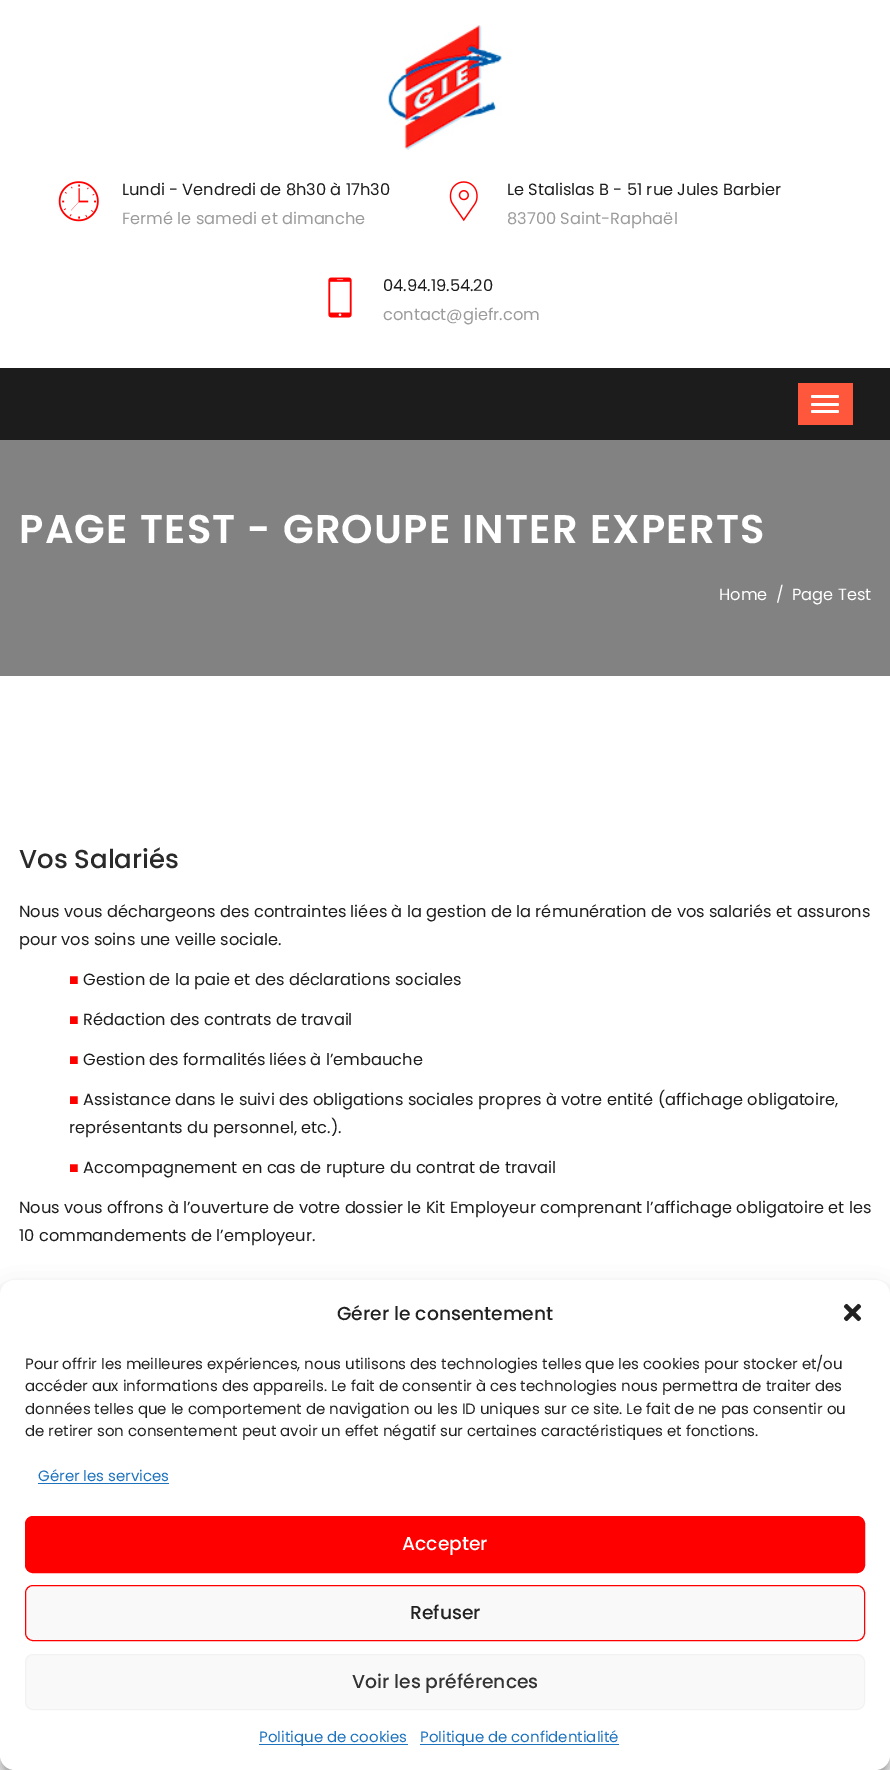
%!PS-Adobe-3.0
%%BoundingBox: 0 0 890 1770
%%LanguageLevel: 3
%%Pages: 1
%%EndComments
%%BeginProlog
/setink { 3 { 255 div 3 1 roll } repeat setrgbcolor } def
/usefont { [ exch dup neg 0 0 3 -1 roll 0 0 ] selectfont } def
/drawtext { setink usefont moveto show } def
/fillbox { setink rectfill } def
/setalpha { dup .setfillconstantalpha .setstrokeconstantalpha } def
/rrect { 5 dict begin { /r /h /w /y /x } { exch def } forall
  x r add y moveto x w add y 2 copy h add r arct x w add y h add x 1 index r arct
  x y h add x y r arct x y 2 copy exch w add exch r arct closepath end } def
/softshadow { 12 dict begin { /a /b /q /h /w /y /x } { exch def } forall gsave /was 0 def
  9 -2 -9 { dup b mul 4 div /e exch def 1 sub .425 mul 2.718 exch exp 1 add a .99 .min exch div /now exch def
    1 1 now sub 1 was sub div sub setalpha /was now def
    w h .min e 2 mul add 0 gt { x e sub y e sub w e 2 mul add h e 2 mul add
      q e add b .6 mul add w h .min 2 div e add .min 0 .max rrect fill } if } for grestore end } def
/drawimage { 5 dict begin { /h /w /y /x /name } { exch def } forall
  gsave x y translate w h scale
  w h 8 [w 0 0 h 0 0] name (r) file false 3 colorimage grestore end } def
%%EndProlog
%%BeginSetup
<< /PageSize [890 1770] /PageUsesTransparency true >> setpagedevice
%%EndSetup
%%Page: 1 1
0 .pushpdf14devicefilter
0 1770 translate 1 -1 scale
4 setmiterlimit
0 0 890 1770 255 255 255 fillbox
(assets/img1.rgb) 388 25 114 125 drawimage
(assets/img2.rgb) 58 181 41 41 drawimage
(Lundi - Vendredi de 8h30 à 17h30) 122 195 /Poppins-Regular 16.25 28 28 28 drawtext
(Fermé le samedi et dimanche) 122 224 /Poppins-Regular 16.25 155 155 155 drawtext
(assets/img3.rgb) 449 181 29 41 drawimage
(Le Stalislas B - 51 rue Jules Barbier) 507 195 /Poppins-Regular 16.25 28 28 28 drawtext
(83700 Saint-Raphaël) 507 224 /Poppins-Regular 16.25 155 155 155 drawtext
(assets/img4.rgb) 328 277 24 41 drawimage
(04.94.19.54.20) 383 291 /Poppins-Regular 16.25 28 28 28 drawtext
(contact@giefr.com) 383 320 /Poppins-Regular 16.25 155 155 155 drawtext
0 368 890 72 28 28 28 fillbox
798 383 55 42 255 87 59 fillbox
255 255 255 setink
811 395 28 3 1.5 rrect fill
811 403 28 3 1.5 rrect fill
811 410 28 3 1.5 rrect fill
0 440 890 236 130 130 130 fillbox
/Poppins-SemiBold 40 usefont
255 255 255 setink
19 543 moveto 1.25 0 (PAGE TEST - GROUPE INTER EXPERTS) ashow
(Home) 719 600 /Poppins-Regular 16.25 255 255 255 drawtext
(/) 776 600 /Poppins-Regular 16.25 255 255 255 drawtext
(Page Test) 792 600 /Poppins-Regular 16.25 255 255 255 drawtext
(Vos Salariés) 19 868 /Poppins-Medium 26 42 42 42 drawtext
(Nous vous déchargeons des contraintes liées à la gestion de la rémunération de vos salariés et assurons) 19 917 /Poppins-Regular 16.25 28 28 28 drawtext
(pour vos soins une veille sociale.) 19 945 /Poppins-Regular 16.25 28 28 28 drawtext
(■) 69 985 /LiberationSans-Regular 16.25 255 0 0 drawtext
(Gestion de la paie et des déclarations sociales) 83 985 /Poppins-Regular 16.25 28 28 28 drawtext
(■) 69 1025 /LiberationSans-Regular 16.25 255 0 0 drawtext
(Rédaction des contrats de travail) 83 1025 /Poppins-Regular 16.25 28 28 28 drawtext
(■) 69 1065 /LiberationSans-Regular 16.25 255 0 0 drawtext
(Gestion des formalités liées à l’embauche) 83 1065 /Poppins-Regular 16.25 28 28 28 drawtext
(■) 69 1105 /LiberationSans-Regular 16.25 255 0 0 drawtext
(Assistance dans le suivi des obligations sociales propres à votre entité \(affichage obligatoire,) 83 1105 /Poppins-Regular 16.25 28 28 28 drawtext
(représentants du personnel, etc.\).) 69 1133 /Poppins-Regular 16.25 28 28 28 drawtext
(■) 69 1173 /LiberationSans-Regular 16.25 255 0 0 drawtext
(Accompagnement en cas de rupture du contrat de travail) 83 1173 /Poppins-Regular 16.25 28 28 28 drawtext
(Nous vous offrons à l’ouverture de votre dossier le Kit Employeur comprenant l’affichage obligatoire et les) 19 1213 /Poppins-Regular 16.25 28 28 28 drawtext
(10 commandements de l’employeur.) 19 1241 /Poppins-Regular 16.25 28 28 28 drawtext
0 0 0 setink
0 1288 890 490 15 4 0.23 softshadow
0 1293 890 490 15 12.5 0.19 softshadow
255 255 255 setink
0 1280 890 490 15 rrect fill
(Gérer le consentement) 337 1320 /Poppins-Medium 18.75 34 34 34 drawtext
(assets/img5.rgb) 843 1303 19 19 drawimage
(Pour offrir les meilleures expériences, nous utilisons des technologies telles que les cookies pour stocker et/ou) 25 1369 /Poppins-Regular 15 34 34 34 drawtext
(accéder aux informations des appareils. Le fait de consentir à ces technologies nous permettra de traiter des) 25 1391 /Poppins-Regular 15 34 34 34 drawtext
(données telles que le comportement de navigation ou les ID uniques sur ce site. Le fait de ne pas consentir ou) 25 1414 /Poppins-Regular 15 34 34 34 drawtext
(de retirer son consentement peut avoir un effet négatif sur certaines caractéristiques et fonctions.) 25 1436 /Poppins-Regular 15 34 34 34 drawtext
(Gérer les services) 38 1481 /Poppins-Regular 15 30 115 190 drawtext
38 1483 131 1 30 115 190 fillbox
255 0 0 setink
25.5 1516.5 839 56 7.5 rrect gsave fill grestore
stroke
(Accepter) 402 1550 /Poppins-Medium 18.75 255 255 255 drawtext
249 249 249 setink
25.5 1585.5 839 55 7.5 rrect gsave fill grestore
255 0 0 setink
stroke
(Refuser) 410 1619 /Poppins-Medium 18.75 34 34 34 drawtext
249 249 249 setink
25.5 1654.5 839 55 7.5 rrect gsave fill grestore
242 242 242 setink
stroke
(Voir les préférences) 352 1688 /Poppins-Medium 18.75 51 51 51 drawtext
259 1744 149 1 30 115 190 fillbox
(Politique de cookies) 259 1742 /Poppins-Regular 15 30 115 190 drawtext
420 1744 199 1 30 115 190 fillbox
(Politique de confidentialité) 420 1742 /Poppins-Regular 15 30 115 190 drawtext
.poppdf14devicefilter showpage
%%EOF
